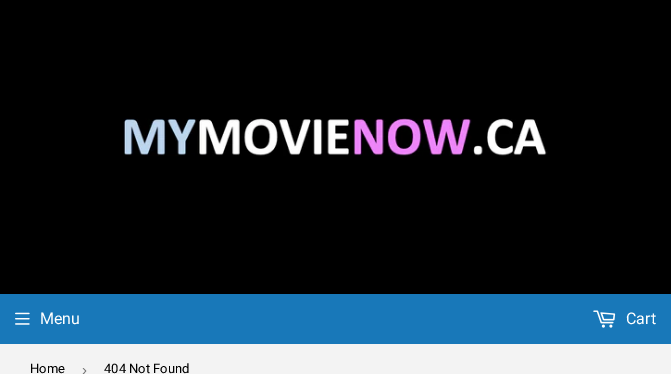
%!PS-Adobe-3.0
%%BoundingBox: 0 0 671 374
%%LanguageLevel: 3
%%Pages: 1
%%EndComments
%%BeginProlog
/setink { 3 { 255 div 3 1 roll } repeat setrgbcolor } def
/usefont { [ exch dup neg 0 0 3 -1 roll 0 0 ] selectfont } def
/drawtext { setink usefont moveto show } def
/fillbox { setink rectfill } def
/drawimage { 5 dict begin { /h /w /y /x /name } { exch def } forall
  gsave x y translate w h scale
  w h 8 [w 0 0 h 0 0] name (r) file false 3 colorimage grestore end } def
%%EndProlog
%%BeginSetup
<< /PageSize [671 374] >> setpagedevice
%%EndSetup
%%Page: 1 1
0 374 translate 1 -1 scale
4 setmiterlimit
0 0 671 374 243 243 243 fillbox
0 0 671 294 0 0 0 fillbox
(assets/img1.rgb) 123 118 425 38 drawimage
0 294 671 50 24 120 185 fillbox
(assets/img2.rgb) 15 312 15 13 drawimage
(Menu) 40 324 /Roboto-Regular 16 255 255 255 drawtext
(assets/img3.rgb) 593 310 23 18 drawimage
(Cart) 626 324 /Roboto-Regular 16 255 255 255 drawtext
(Home) 30 373 /Roboto-Regular 13 0 0 0 drawtext
(›) 82 375 /LiberationSans-Regular 15 118 118 118 drawtext
(404 Not Found) 104 373 /Roboto-Regular 13 0 0 0 drawtext
showpage
%%EOF
